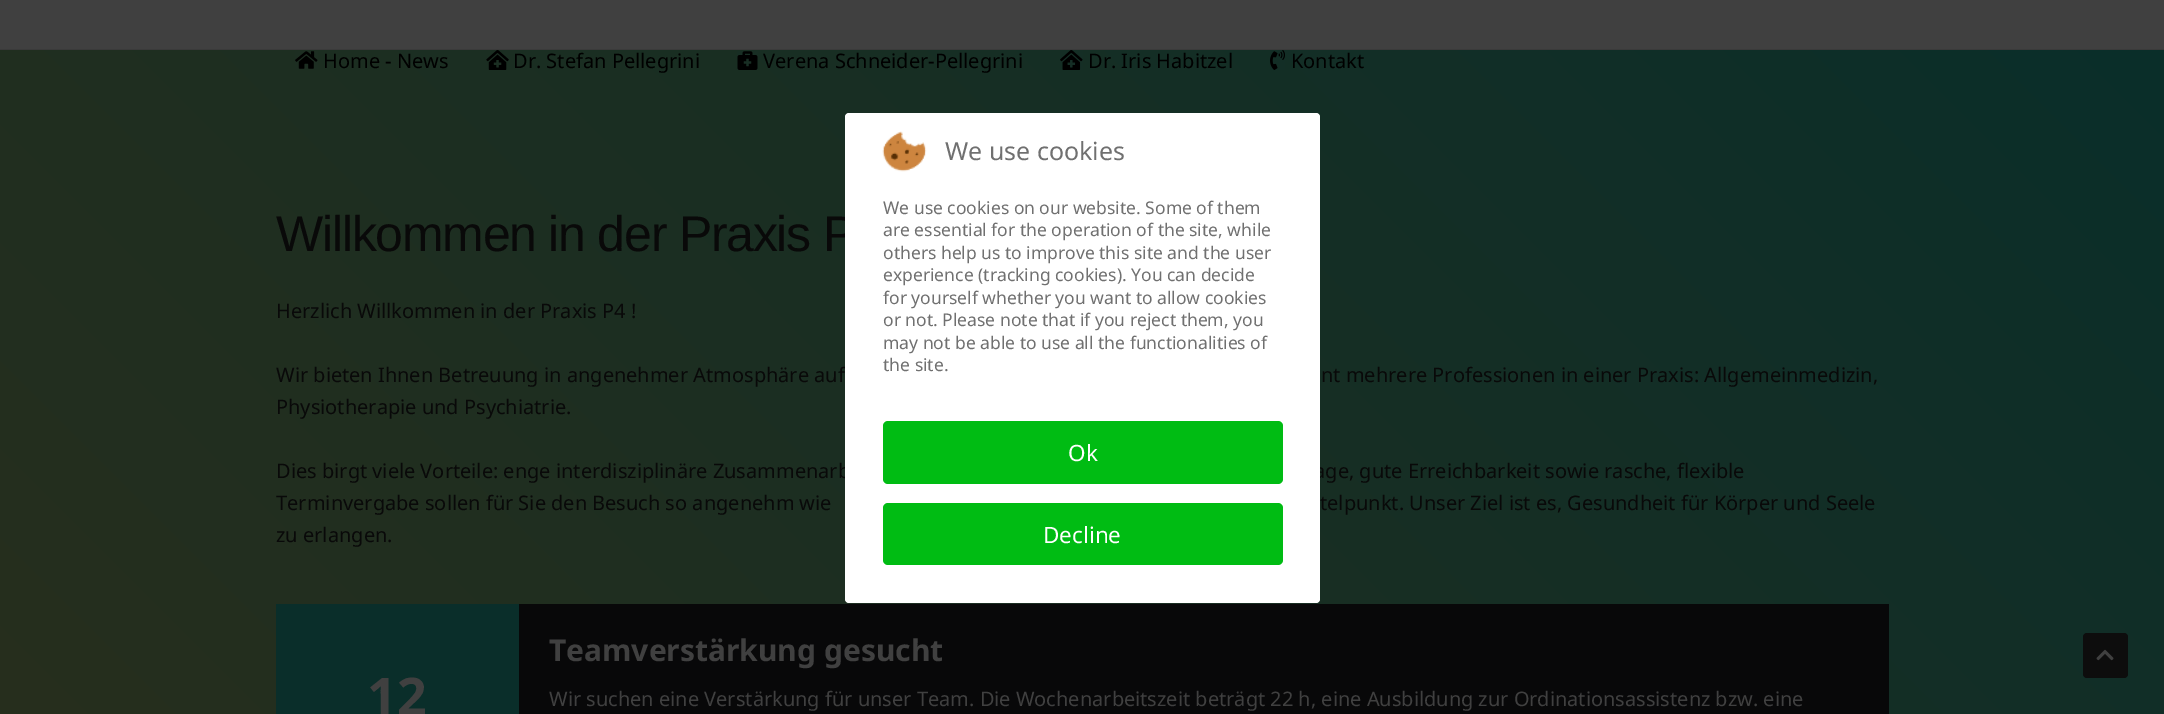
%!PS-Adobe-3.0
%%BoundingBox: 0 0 2164 714
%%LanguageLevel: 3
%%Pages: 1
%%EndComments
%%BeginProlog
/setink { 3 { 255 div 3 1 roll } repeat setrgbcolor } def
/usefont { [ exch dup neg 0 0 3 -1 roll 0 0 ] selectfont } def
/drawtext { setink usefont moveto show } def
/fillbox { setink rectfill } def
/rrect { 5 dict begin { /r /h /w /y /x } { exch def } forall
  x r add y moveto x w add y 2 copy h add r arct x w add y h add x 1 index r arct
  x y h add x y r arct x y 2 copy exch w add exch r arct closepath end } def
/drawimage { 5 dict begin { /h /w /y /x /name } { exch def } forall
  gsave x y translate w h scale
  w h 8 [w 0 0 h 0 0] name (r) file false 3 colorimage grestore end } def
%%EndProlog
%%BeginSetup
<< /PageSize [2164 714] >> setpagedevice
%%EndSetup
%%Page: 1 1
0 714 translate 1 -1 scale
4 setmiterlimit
0 0 2164 714 255 255 255 fillbox
0 0 2164 49 64 64 64 fillbox
0 49 2164 1 58 58 58 fillbox
gsave 0 50 moveto 2164 50 lineto 2164 714 lineto 0 714 lineto closepath clip newpath
<< /ShadingType 2 /ColorSpace /DeviceRGB /Coords [317 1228 1848 -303] /Extend [true true] /Function << /FunctionType 2 /Domain [0 1] /C0 [0.161 0.18 0.11] /C1 [0.039 0.18 0.165] /N 1 >> >> shfill grestore
(assets/img1.rgb) 295 51 23 18 drawimage
(Home - News) 323 68 /NotoSans-Regular 20 0 0 0 drawtext
(assets/img2.rgb) 486 50 23 20 drawimage
(Dr. Stefan Pellegrini) 513 68 /NotoSans-Regular 20 0 0 0 drawtext
(assets/img3.rgb) 737 51 21 19 drawimage
(Verena Schneider-Pellegrini) 763 68 /NotoSans-Regular 20 0 0 0 drawtext
(assets/img4.rgb) 1060 50 23 20 drawimage
(Dr. Iris Habitzel) 1088 68 /NotoSans-Regular 20 0 0 0 drawtext
(assets/img5.rgb) 1270 50 15 20 drawimage
(Kontakt) 1291 68 /NotoSans-Regular 20 0 0 0 drawtext
/LiberationSans-Regular 50 usefont
9 9 9 setink
276 251 moveto -1.25 0 (Willkommen in der Praxis P) ashow
(Herzlich Willkommen in der Praxis P4 !) 276 318 /NotoSans-Regular 20 9 9 9 drawtext
(Wir bieten Ihnen Betreuung in angenehmer Atmosphäre auf) 276 382 /NotoSans-Regular 20 9 9 9 drawtext
(nt mehrere Professionen in einer Praxis: Allgemeinmedizin,) 1321 382 /NotoSans-Regular 20 9 9 9 drawtext
(Physiotherapie und Psychiatrie.) 276 414 /NotoSans-Regular 20 9 9 9 drawtext
(Dies birgt viele Vorteile: enge interdisziplinäre Zusammenarb) 276 478 /NotoSans-Regular 20 9 9 9 drawtext
(age, gute Erreichbarkeit sowie rasche, flexible) 1314 478 /NotoSans-Regular 20 9 9 9 drawtext
(Terminvergabe sollen für Sie den Besuch so angenehm wie) 276 510 /NotoSans-Regular 20 9 9 9 drawtext
(telpunkt. Unser Ziel ist es, Gesundheit für Körper und Seele) 1320 510 /NotoSans-Regular 20 9 9 9 drawtext
(zu erlangen.) 276 542 /NotoSans-Regular 20 9 9 9 drawtext
276 604 243 110 10 46 42 fillbox
(12) 367 715 /NotoSans-Bold 52 64 64 64 drawtext
519 604 1370 110 8 8 9 fillbox
(Teamverstärkung gesucht) 549 661 /NotoSans-Bold 30 64 64 64 drawtext
(Wir suchen eine Verstärkung für unser Team. Die Wochenarbeitszeit beträgt 22 h, eine Ausbildung zur Ordinationsassistenz bzw. eine) 549 706 /NotoSans-Regular 20 64 64 64 drawtext
255 255 255 setink
845 113 475 490 4 rrect fill
(assets/img6.rgb) 882 131 45 41 drawimage
(We use cookies) 945 160 /NotoSans-Regular 25 112 112 112 drawtext
(We use cookies on our website. Some of them) 883 214 /NotoSans-Regular 17.5 112 112 112 drawtext
(are essential for the operation of the site, while) 883 236 /NotoSans-Regular 17.5 112 112 112 drawtext
(others help us to improve this site and the user) 883 259 /NotoSans-Regular 17.5 112 112 112 drawtext
(experience \(tracking cookies\). You can decide) 883 281 /NotoSans-Regular 17.5 112 112 112 drawtext
(for yourself whether you want to allow cookies) 883 304 /NotoSans-Regular 17.5 112 112 112 drawtext
(or not. Please note that if you reject them, you) 883 326 /NotoSans-Regular 17.5 112 112 112 drawtext
(may not be able to use all the functionalities of) 883 349 /NotoSans-Regular 17.5 112 112 112 drawtext
(the site.) 883 371 /NotoSans-Regular 17.5 112 112 112 drawtext
0 188 19 setink
883 421 400 63 5 rrect fill
(Ok) 1068 461 /NotoSans-Regular 22.5 255 255 255 drawtext
0 188 19 setink
883 503 400 62 5 rrect fill
(Decline) 1043 543 /NotoSans-Regular 22.5 255 255 255 drawtext
13 13 13 setink
2083 633 45 45 4 rrect fill
(assets/img7.rgb) 2096 649 18 12 drawimage
showpage
%%EOF
